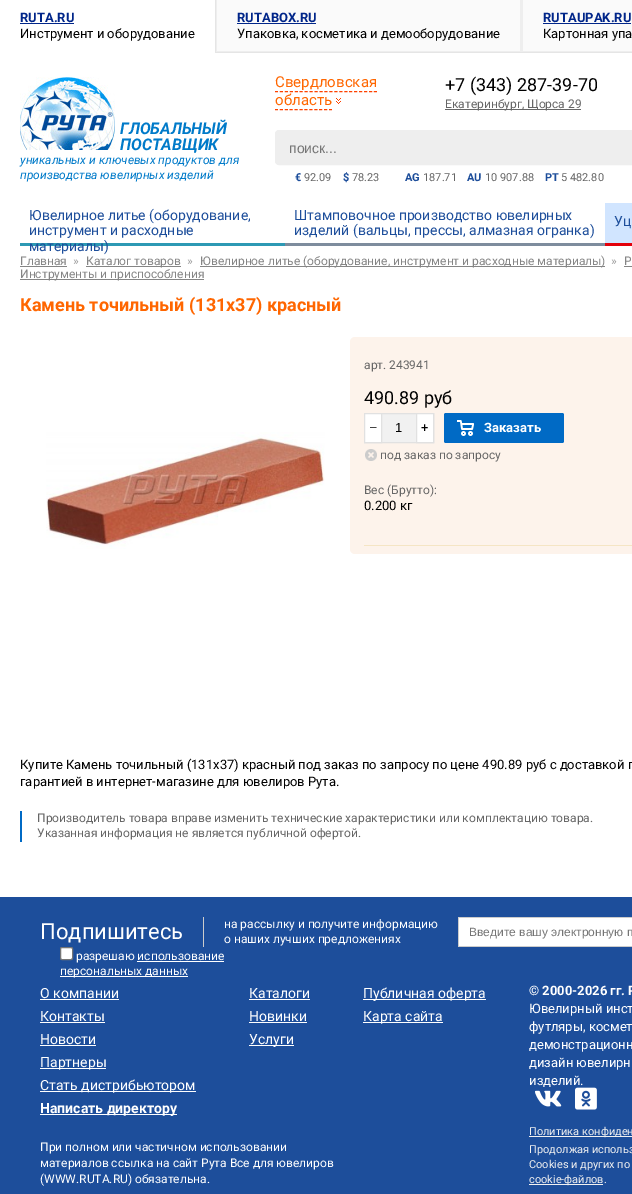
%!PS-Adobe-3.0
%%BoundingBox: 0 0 632 1194
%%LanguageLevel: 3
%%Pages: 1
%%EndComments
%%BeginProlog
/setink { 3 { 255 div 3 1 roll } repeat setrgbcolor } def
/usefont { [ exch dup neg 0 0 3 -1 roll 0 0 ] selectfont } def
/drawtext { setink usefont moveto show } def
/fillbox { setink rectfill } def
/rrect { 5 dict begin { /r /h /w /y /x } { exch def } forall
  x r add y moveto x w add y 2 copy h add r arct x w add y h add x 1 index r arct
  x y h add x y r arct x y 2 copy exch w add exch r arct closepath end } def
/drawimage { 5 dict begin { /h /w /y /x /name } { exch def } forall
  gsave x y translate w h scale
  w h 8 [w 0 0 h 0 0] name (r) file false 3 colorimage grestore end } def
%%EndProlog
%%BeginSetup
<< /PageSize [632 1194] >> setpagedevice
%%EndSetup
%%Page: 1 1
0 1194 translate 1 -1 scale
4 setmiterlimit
0 0 632 1194 29 78 155 fillbox
0 53 632 844 255 255 255 fillbox
216 0 416 52 238 238 238 fillbox
216 52 416 1 229 229 229 fillbox
0 0 215 53 255 255 255 fillbox
215 0 1 53 229 229 229 fillbox
(RUTA.RU) 20 22 /Roboto-Bold 13 0 37 137 drawtext
20 23 54 1 0 37 137 fillbox
(Инструмент и оборудование) 20 38 /Roboto-Regular 13 0 0 0 drawtext
217 0 303 51 250 250 250 fillbox
(RUTABOX.RU) 237 22 /Roboto-Bold 13 0 37 137 drawtext
237 23 79 1 0 37 137 fillbox
(Упаковка, косметика и демооборудование) 237 38 /Roboto-Regular 13 0 0 0 drawtext
523 0 109 51 250 250 250 fillbox
(RUTAUPAK.RU) 543 22 /Roboto-Bold 13 0 37 137 drawtext
543 23 88 1 0 37 137 fillbox
(Картонная упа) 543 38 /Roboto-Regular 13 0 0 0 drawtext
(Свердловская) 275 87 /Roboto-Regular 15 255 102 0 drawtext
254 66 0 setink
[3 1.95] 0 setdash
275 91.5 moveto 377 91.5 lineto stroke
(область) 275 105 /Roboto-Regular 15 255 102 0 drawtext
254 66 0 setink
[3 1.91] 0 setdash
275 109.5 moveto 332 109.5 lineto stroke
(assets/img1.rgb) 336 98 5 6 drawimage
(+7 \(343\) 287-39-70) 445 91 /Roboto-Regular 18 0 0 0 drawtext
445 109 136 1 102 102 102 fillbox
(Екатеринбург, Щорса 29) 445 108 /Roboto-Regular 12 102 102 102 drawtext
(assets/img2.rgb) 20 77 95 73 drawimage
(ГЛОБАЛЬНЫЙ) 120 134 /Roboto-BoldItalic 16 0 122 201 drawtext
(ПОСТАВЩИК) 120 150 /Roboto-BoldItalic 16 0 122 201 drawtext
(уникальных и ключевых продуктов для) 20 164 /Roboto-Italic 12 0 122 201 drawtext
(производства ювелирных изделий) 20 179 /Roboto-Italic 12 0 122 201 drawtext
238 238 238 setink
275.5 130.5 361 34 3.5 rrect gsave fill grestore
[] 0 setdash
stroke
(поиск...) 289 153 /LiberationSans-Regular 14 117 117 117 drawtext
(€) 295 181 /Roboto-Bold 11 29 78 155 drawtext
(92.09) 304 181 /Roboto-Regular 11 102 102 102 drawtext
($) 343 181 /Roboto-Bold 11 29 78 155 drawtext
(78.23) 352 181 /Roboto-Regular 11 102 102 102 drawtext
(AG) 405 181 /Roboto-Bold 11 29 78 155 drawtext
(187.71) 423 181 /Roboto-Regular 11 102 102 102 drawtext
(AU) 467 181 /Roboto-Bold 11 29 78 155 drawtext
(10 907.88) 485 181 /Roboto-Regular 11 102 102 102 drawtext
(PT) 545 181 /Roboto-Bold 11 29 78 155 drawtext
(5 482.80) 561 181 /Roboto-Regular 11 102 102 102 drawtext
20 243 265 3 45 153 180 fillbox
(Ювелирное литье \(оборудование,) 29 220 /Roboto-Regular 14 29 78 155 drawtext
(инструмент и расходные) 29 235 /Roboto-Regular 14 29 78 155 drawtext
(материалы\)) 29 251 /Roboto-Regular 14 29 78 155 drawtext
285 243 320 3 126 140 157 fillbox
(Штамповочное производство ювелирных) 294 220 /Roboto-Regular 14 29 78 155 drawtext
(изделий \(вальцы, прессы, алмазная огранка\)) 294 235 /Roboto-Regular 14 29 78 155 drawtext
605 203 27 40 209 229 255 fillbox
605 243 27 3 227 0 11 fillbox
(Уц) 614 226 /Roboto-Regular 14 29 78 155 drawtext
(Главная) 20 265 /Roboto-Regular 12 133 133 133 drawtext
20 266 47 1 133 133 133 fillbox
(») 73 265 /Roboto-Regular 12 160 160 160 drawtext
86 266 95 1 133 133 133 fillbox
(Каталог товаров) 86 265 /Roboto-Regular 12 133 133 133 drawtext
(») 187 265 /Roboto-Regular 12 160 160 160 drawtext
200 266 405 1 133 133 133 fillbox
(Ювелирное литье \(оборудование, инструмент и расходные материалы\)) 200 265 /Roboto-Regular 12 133 133 133 drawtext
(») 611 265 /Roboto-Regular 12 160 160 160 drawtext
(Р) 624 265 /Roboto-Regular 12 133 133 133 drawtext
624 266 8 1 133 133 133 fillbox
20 279 184 1 133 133 133 fillbox
(Инструменты и приспособления) 20 278 /Roboto-Regular 12 133 133 133 drawtext
(Камень точильный \(131х37\) красный) 20 311 /Roboto-Bold 18 255 102 0 drawtext
(assets/img3.rgb) 46 432 279 117 drawimage
253 243 235 setink
350 337 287 217 5 rrect fill
(арт. 243941) 364 369 /Roboto-Regular 12 102 102 102 drawtext
(490.89 руб) 364 404 /Roboto-Regular 18 0 0 0 drawtext
382 414 34 28 241 241 241 fillbox
225 225 225 setink
364.5 413.5 69 29 rectstroke
255 255 255 setink
364.5 413.5 moveto 381.5 413.5 lineto 381.5 442.5 lineto 364.5 442.5 lineto closepath gsave fill grestore
225 225 225 setink
stroke
(–) 369 432 /Roboto-Regular 13 0 0 0 drawtext
(1) 395 432 /LiberationSans-Regular 13 0 0 0 drawtext
255 255 255 setink
416.5 413.5 moveto 433.5 413.5 lineto 433.5 442.5 lineto 416.5 442.5 lineto closepath gsave fill grestore
225 225 225 setink
stroke
(+) 421 432 /Roboto-Regular 13 0 0 0 drawtext
0 106 197 setink
444 413 120 30 2 rrect fill
(assets/img4.rgb) 457 420 17 16 drawimage
(Заказать) 484 432 /Roboto-Bold 13 255 255 255 drawtext
(assets/img5.rgb) 365 449 12 12 drawimage
(под заказ по запросу) 380 459 /Roboto-Regular 12 102 102 102 drawtext
(Вес \(Брутто\):) 364 494 /Roboto-Regular 12 102 102 102 drawtext
(0.200 кг) 364 510 /Roboto-Regular 13 0 0 0 drawtext
364 545 268 1 245 229 196 fillbox
(Купите Камень точильный \(131х37\) красный под заказ по запросу по цене 490.89 руб с доставкой п) 20 769 /Roboto-Regular 13 0 0 0 drawtext
(гарантией в интернет-магазине для ювелиров Рута.) 20 786 /Roboto-Regular 13 0 0 0 drawtext
20 811 2 31 0 106 197 fillbox
(Производитель товара вправе изменить технические характеристики или комплектацию товара.) 37 822 /Roboto-Regular 12 102 102 102 drawtext
(Указанная информация не является публичной офертой.) 37 837 /Roboto-Regular 12 102 102 102 drawtext
(Подпишитесь) 40 939 /Roboto-Regular 22 255 255 255 drawtext
203 917 1 30 204 204 204 fillbox
(на рассылку и получите информацию) 224 928 /Roboto-Regular 12 255 255 255 drawtext
(о наших лучших предложениях) 224 943 /Roboto-Regular 12 255 255 255 drawtext
459 918 173 28 255 255 255 fillbox
458 917 174 1 204 204 204 fillbox
458 946 174 1 204 204 204 fillbox
458 917 1 30 204 204 204 fillbox
(Введите вашу электронную п) 469 936 /LiberationSans-Regular 12 117 117 117 drawtext
255 255 255 setink
60.5 947.5 12 12 1.5 rrect gsave fill grestore
118 118 118 setink
stroke
(разрешаю использование) 76 960 /Roboto-Regular 12 255 255 255 drawtext
60 976 128 1 255 255 255 fillbox
(персональных данных) 60 975 /Roboto-Regular 12 255 255 255 drawtext
137 961 87 1 255 255 255 fillbox
(О компании) 40 998 /Roboto-Regular 14 255 255 255 drawtext
40 999 79 1 255 255 255 fillbox
(Контакты) 40 1021 /Roboto-Regular 14 255 255 255 drawtext
40 1022 65 1 255 255 255 fillbox
(Новости) 40 1044 /Roboto-Regular 14 255 255 255 drawtext
40 1045 56 1 255 255 255 fillbox
40 1068 66 1 255 255 255 fillbox
(Партнеры) 40 1067 /Roboto-Regular 14 255 255 255 drawtext
40 1091 156 1 255 255 255 fillbox
(Стать дистрибьютором) 40 1090 /Roboto-Regular 14 255 255 255 drawtext
(Каталоги) 249 998 /Roboto-Regular 14 255 255 255 drawtext
249 999 61 1 255 255 255 fillbox
(Новинки) 249 1021 /Roboto-Regular 14 255 255 255 drawtext
249 1022 58 1 255 255 255 fillbox
249 1045 45 1 255 255 255 fillbox
(Услуги) 249 1044 /Roboto-Regular 14 255 255 255 drawtext
363 999 123 1 255 255 255 fillbox
(Публичная оферта) 363 998 /Roboto-Regular 14 255 255 255 drawtext
363 1022 80 1 255 255 255 fillbox
(Карта сайта) 363 1021 /Roboto-Regular 14 255 255 255 drawtext
40 1114 137 1 255 255 255 fillbox
(Написать директору) 40 1113 /Roboto-Bold 14 255 255 255 drawtext
(© 2000-2026 гг. Р) 529 995 /Roboto-Bold 13 255 255 255 drawtext
(Ювелирный инст) 529 1013 /Roboto-Regular 13 255 255 255 drawtext
(футляры, космет) 529 1031 /Roboto-Regular 13 255 255 255 drawtext
(демонстрационн) 529 1049 /Roboto-Regular 13 255 255 255 drawtext
(дизайн ювелирн) 529 1067 /Roboto-Regular 13 255 255 255 drawtext
(изделий.) 529 1085 /Roboto-Regular 13 255 255 255 drawtext
(assets/img6.rgb) 535 1090 27 17 drawimage
(assets/img7.rgb) 575 1087 22 23 drawimage
(При полном или частичном использовании) 40 1151 /Roboto-Regular 12 255 255 255 drawtext
(материалов ссылка на сайт Рута Все для ювелиров) 40 1167 /Roboto-Regular 12 255 255 255 drawtext
(\(WWW.RUTA.RU\) обязательна.) 40 1183 /Roboto-Regular 12 255 255 255 drawtext
529 1136 103 1 241 241 241 fillbox
(Политика конфиден) 529 1135 /Roboto-Regular 11 241 241 241 drawtext
(Продолжая использ) 529 1153 /Roboto-Regular 11 241 241 241 drawtext
(Cookies и других по) 529 1168 /Roboto-Regular 11 241 241 241 drawtext
529 1184 74 1 241 241 241 fillbox
(cookie-файлов.) 529 1183 /Roboto-Regular 11 241 241 241 drawtext
showpage
%%EOF
